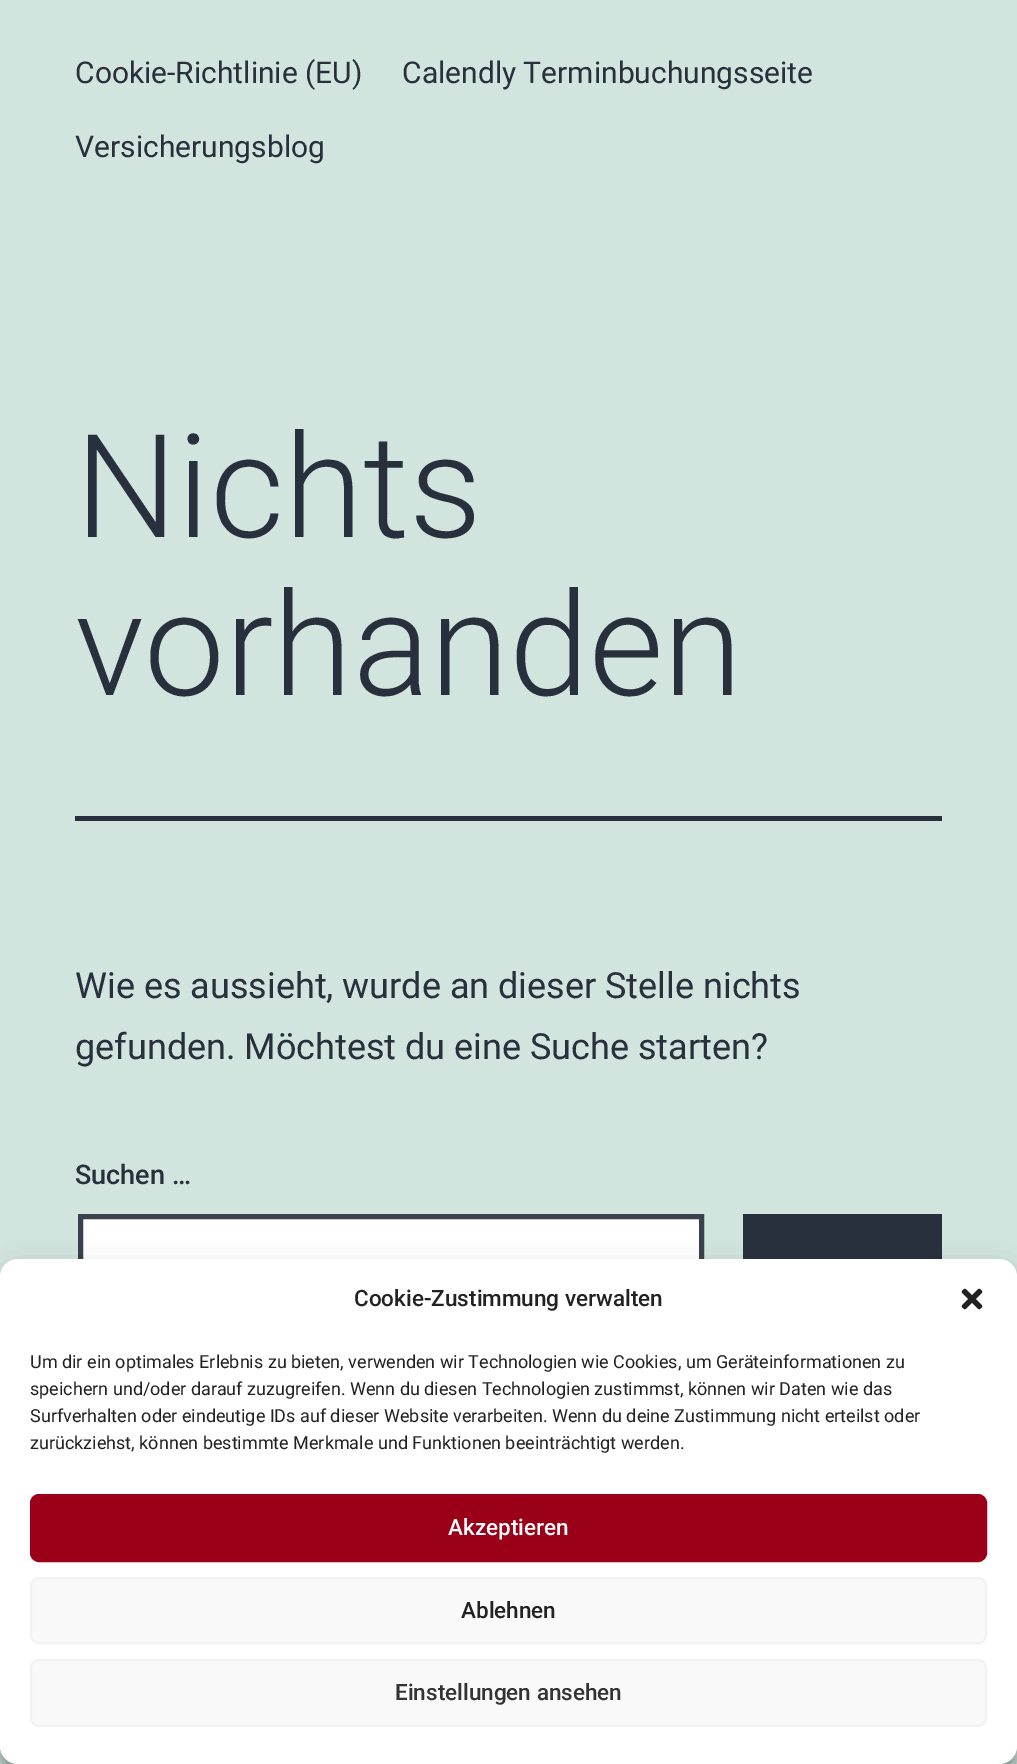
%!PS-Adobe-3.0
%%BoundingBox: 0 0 1017 1764
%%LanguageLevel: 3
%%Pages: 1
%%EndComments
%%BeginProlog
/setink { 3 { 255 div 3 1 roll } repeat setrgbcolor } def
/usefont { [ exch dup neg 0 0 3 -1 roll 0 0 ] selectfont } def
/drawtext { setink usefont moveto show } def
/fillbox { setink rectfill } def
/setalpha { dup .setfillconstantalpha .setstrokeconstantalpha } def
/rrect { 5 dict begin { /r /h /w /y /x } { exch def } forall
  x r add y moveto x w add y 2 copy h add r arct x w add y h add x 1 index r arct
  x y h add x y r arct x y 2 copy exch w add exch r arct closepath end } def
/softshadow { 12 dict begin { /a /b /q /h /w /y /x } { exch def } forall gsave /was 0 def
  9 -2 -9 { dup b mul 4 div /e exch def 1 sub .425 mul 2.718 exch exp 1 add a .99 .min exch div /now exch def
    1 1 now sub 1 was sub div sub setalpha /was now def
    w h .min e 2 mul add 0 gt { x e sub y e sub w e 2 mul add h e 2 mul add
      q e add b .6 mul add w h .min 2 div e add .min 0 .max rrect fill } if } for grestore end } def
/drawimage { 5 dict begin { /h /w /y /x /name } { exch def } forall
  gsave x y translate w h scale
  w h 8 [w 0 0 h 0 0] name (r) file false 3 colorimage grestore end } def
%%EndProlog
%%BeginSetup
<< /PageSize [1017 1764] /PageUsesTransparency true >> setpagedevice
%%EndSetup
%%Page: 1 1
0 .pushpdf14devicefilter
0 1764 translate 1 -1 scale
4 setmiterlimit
0 0 1017 1764 209 228 221 fillbox
(Cookie-Richtlinie \(EU\)) 75 83 /Roboto-Regular 30 40 48 61 drawtext
(Calendly Terminbuchungsseite) 402 83 /Roboto-Regular 30 40 48 61 drawtext
(Versicherungsblog) 75 157 /Roboto-Regular 30 40 48 61 drawtext
75 816 867 5 40 48 61 fillbox
(Nichts) 75 537 /Roboto-Light 144 40 48 61 drawtext
(vorhanden) 75 695 /Roboto-Light 144 40 48 61 drawtext
(Wie es aussieht, wurde an dieser Stelle nichts) 75 998 /Roboto-Regular 36 40 48 61 drawtext
(gefunden. Möchtest du eine Suche starten?) 75 1059 /Roboto-Regular 36 40 48 61 drawtext
(Suchen …) 75 1184 /Roboto-Medium 27 40 48 61 drawtext
83 1219 616 40 255 255 255 fillbox
57 65 77 setink
5 setlinewidth
80.5 1216.5 621 94 rectstroke
743 1214 199 45 40 48 61 fillbox
0 0 0 setink
0 1268 1017 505 18 4.5 0.23 softshadow
0 1274 1017 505 18 15 0.19 softshadow
255 255 255 setink
0 1259 1017 505 18 rrect fill
(Cookie-Zustimmung verwalten) 354 1306 /Roboto-Medium 22.5 34 34 34 drawtext
(assets/img1.rgb) 961 1288 22 22 drawimage
(Um dir ein optimales Erlebnis zu bieten, verwenden wir Technologien wie Cookies, um Geräteinformationen zu) 30 1368 /Roboto-Regular 18 34 34 34 drawtext
(speichern und/oder darauf zuzugreifen. Wenn du diesen Technologien zustimmst, können wir Daten wie das) 30 1395 /Roboto-Regular 18 34 34 34 drawtext
(Surfverhalten oder eindeutige IDs auf dieser Website verarbeiten. Wenn du deine Zustimmung nicht erteilst oder) 30 1422 /Roboto-Regular 18 34 34 34 drawtext
(zurückziehst, können bestimmte Merkmale und Funktionen beeinträchtigt werden.) 30 1449 /Roboto-Regular 18 34 34 34 drawtext
154 0 23 setink
31 1495 955 66 8 rrect gsave fill grestore
2 setlinewidth
stroke
(Akzeptieren) 448 1535 /Roboto-Medium 22.5 255 255 255 drawtext
249 249 249 setink
31 1578 955 65 8 rrect gsave fill grestore
242 242 242 setink
stroke
(Ablehnen) 461 1618 /Roboto-Medium 22.5 34 34 34 drawtext
249 249 249 setink
31 1660 955 66 8 rrect gsave fill grestore
242 242 242 setink
stroke
(Einstellungen ansehen) 395 1700 /Roboto-Medium 22.5 51 51 51 drawtext
.poppdf14devicefilter showpage
%%EOF
